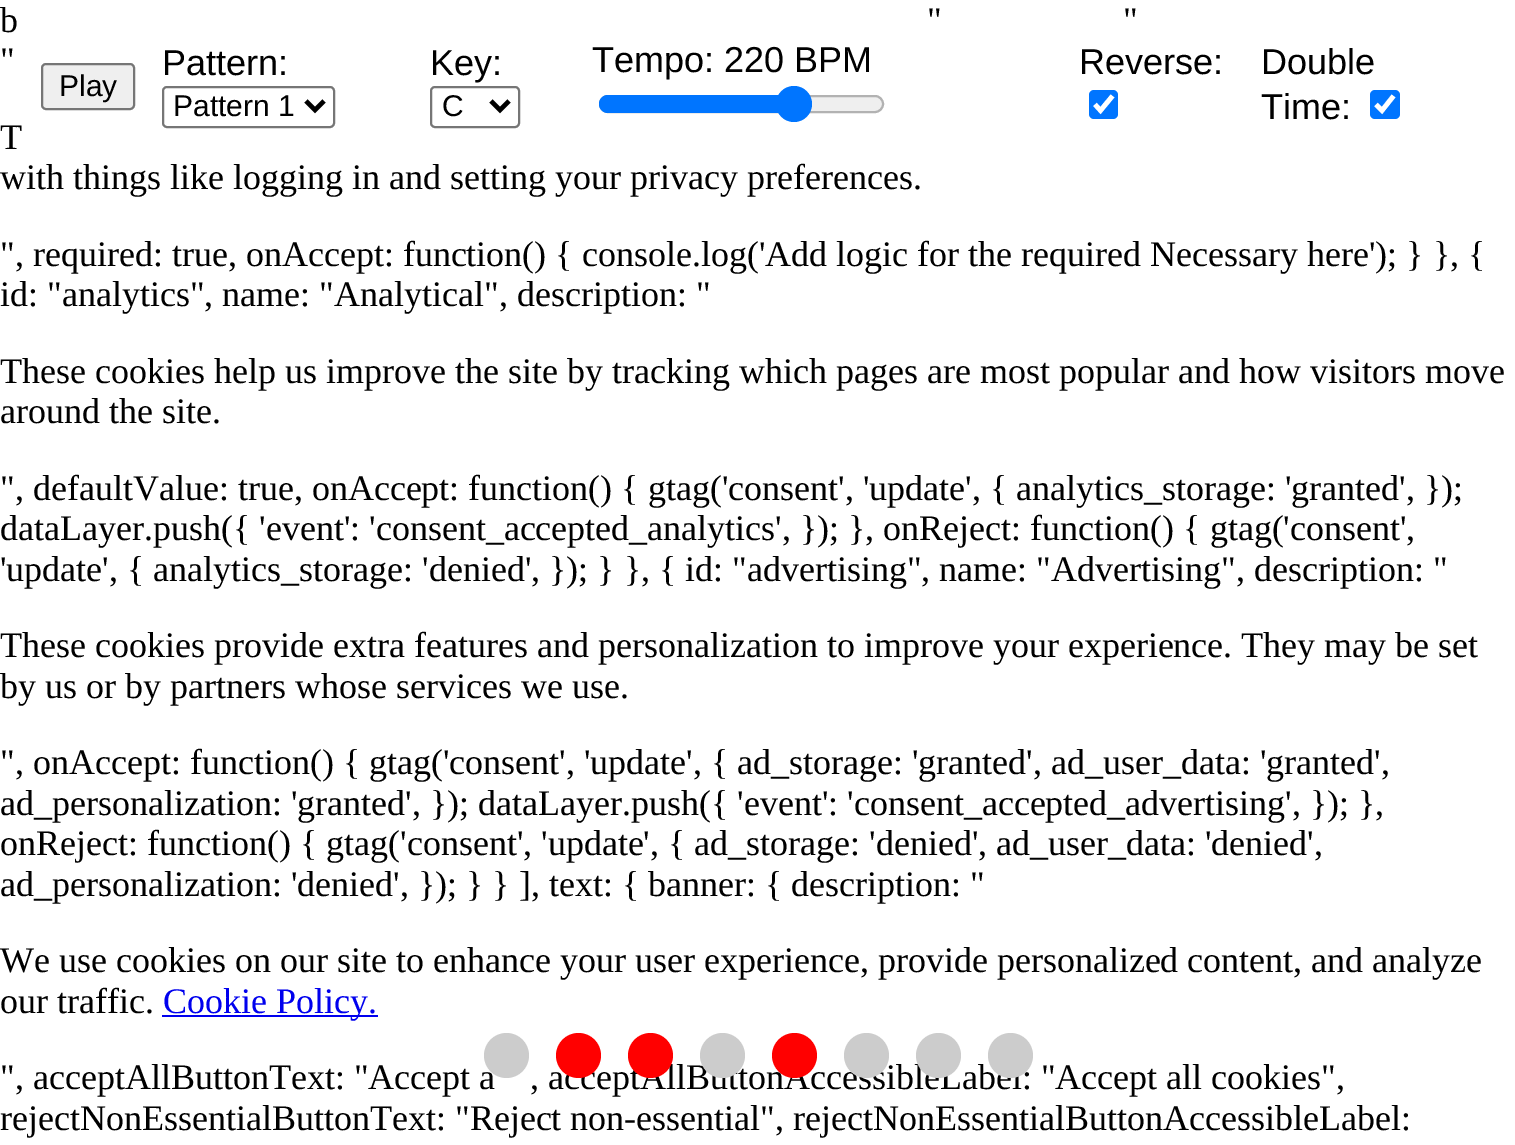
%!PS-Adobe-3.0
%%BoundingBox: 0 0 1515 1145
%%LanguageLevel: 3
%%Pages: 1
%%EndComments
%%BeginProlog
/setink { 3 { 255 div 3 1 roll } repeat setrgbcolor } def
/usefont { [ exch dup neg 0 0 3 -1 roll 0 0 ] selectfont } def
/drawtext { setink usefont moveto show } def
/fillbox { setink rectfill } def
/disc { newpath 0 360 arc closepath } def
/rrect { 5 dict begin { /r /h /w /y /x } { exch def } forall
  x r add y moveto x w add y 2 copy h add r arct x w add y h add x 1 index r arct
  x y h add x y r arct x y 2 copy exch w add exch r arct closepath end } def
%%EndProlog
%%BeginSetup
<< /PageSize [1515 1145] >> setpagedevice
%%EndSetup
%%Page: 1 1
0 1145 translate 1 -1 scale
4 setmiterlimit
0 0 1515 1145 255 255 255 fillbox
(b) 0 32 /LiberationSerif-Regular 36 0 0 0 drawtext
(") 927 32 /LiberationSerif-Regular 36 0 0 0 drawtext
(") 1123 32 /LiberationSerif-Regular 36 0 0 0 drawtext
(") 0 72 /LiberationSerif-Regular 36 0 0 0 drawtext
239 239 239 setink
42 64 92 45 4 rrect gsave fill grestore
118 118 118 setink
2 setlinewidth
stroke
(Play) 59 96 /LiberationSans-Regular 30 0 0 0 drawtext
(Pattern:) 162 75 /LiberationSans-Regular 36 0 0 0 drawtext
118 118 118 setink
163 87 171 40 4 rrect stroke
0 0 0 setink
4.5 setlinewidth
306 101 moveto 315 110 lineto 324 101 lineto stroke
(Pattern 1) 173 116 /LiberationSans-Regular 30 0 0 0 drawtext
(Key:) 430 75 /LiberationSans-Regular 36 0 0 0 drawtext
118 118 118 setink
2 setlinewidth
431 87 88 40 4 rrect stroke
0 0 0 setink
4.5 setlinewidth
491 101 moveto 500 110 lineto 509 101 lineto stroke
(C) 442 116 /LiberationSans-Regular 30 0 0 0 drawtext
(Tempo: 220 BPM) 592 72 /LiberationSans-Regular 36 0 0 0 drawtext
239 239 239 setink
600 96 283 16 8 rrect gsave fill grestore
178 178 178 setink
2 setlinewidth
stroke
0 117 255 setink
608 95 moveto 794 95 lineto 794 113 lineto 608 113 lineto 603 113 599 109 599 104 curveto 599 99 603 95 608 95 curveto closepath fill
794 104 18 disc fill
(Reverse:) 1079 74 /LiberationSans-Regular 36 0 0 0 drawtext
0 117 255 setink
1089 90 29 29 5 rrect fill
255 255 255 setink
4.7 setlinewidth
1095 104.5 moveto 1100.5 110.5 lineto 1112.5 96 lineto stroke
(Double) 1261 74 /LiberationSans-Regular 36 0 0 0 drawtext
(Time:) 1261 119 /LiberationSans-Regular 36 0 0 0 drawtext
0 117 255 setink
1370 90 30 29 5 rrect fill
255 255 255 setink
1376 104.5 moveto 1382 110.5 lineto 1393.5 96 lineto stroke
(T) 0 149 /LiberationSerif-Regular 36 0 0 0 drawtext
(with things like logging in and setting your privacy preferences.) 0 189 /LiberationSerif-Regular 36 0 0 0 drawtext
(", required: true, onAccept: function\(\) { console.log\('Add logic for the required Necessary here'\); } }, {) 0 266 /LiberationSerif-Regular 36 0 0 0 drawtext
(id: "analytics", name: "Analytical", description: ") 0 306 /LiberationSerif-Regular 36 0 0 0 drawtext
(These cookies help us improve the site by tracking which pages are most popular and how visitors move) 0 383 /LiberationSerif-Regular 36 0 0 0 drawtext
(around the site.) 0 423 /LiberationSerif-Regular 36 0 0 0 drawtext
(", defaultValue: true, onAccept: function\(\) { gtag\('consent', 'update', { analytics_storage: 'granted', }\);) 0 500 /LiberationSerif-Regular 36 0 0 0 drawtext
(dataLayer.push\({ 'event': 'consent_accepted_analytics', }\); }, onReject: function\(\) { gtag\('consent',) 0 540 /LiberationSerif-Regular 36 0 0 0 drawtext
('update', { analytics_storage: 'denied', }\); } }, { id: "advertising", name: "Advertising", description: ") 0 581 /LiberationSerif-Regular 36 0 0 0 drawtext
(These cookies provide extra features and personalization to improve your experience. They may be set) 0 657 /LiberationSerif-Regular 36 0 0 0 drawtext
(by us or by partners whose services we use.) 0 698 /LiberationSerif-Regular 36 0 0 0 drawtext
(", onAccept: function\(\) { gtag\('consent', 'update', { ad_storage: 'granted', ad_user_data: 'granted',) 0 774 /LiberationSerif-Regular 36 0 0 0 drawtext
(ad_personalization: 'granted', }\); dataLayer.push\({ 'event': 'consent_accepted_advertising', }\); },) 0 815 /LiberationSerif-Regular 36 0 0 0 drawtext
(onReject: function\(\) { gtag\('consent', 'update', { ad_storage: 'denied', ad_user_data: 'denied',) 0 855 /LiberationSerif-Regular 36 0 0 0 drawtext
(ad_personalization: 'denied', }\); } } ], text: { banner: { description: ") 0 896 /LiberationSerif-Regular 36 0 0 0 drawtext
(We use cookies on our site to enhance your user experience, provide personalized content, and analyze) 0 972 /LiberationSerif-Regular 36 0 0 0 drawtext
(our traffic.) 0 1013 /LiberationSerif-Regular 36 0 0 0 drawtext
162 1015 216 2 0 0 238 fillbox
(Cookie Policy.) 163 1013 /LiberationSerif-Regular 36 0 0 238 drawtext
(", acceptAllButtonText: "Accept a) 0 1089 /LiberationSerif-Regular 36 0 0 0 drawtext
204 204 204 setink
506.5 1055.5 22.5 disc fill
(, acceptAllButtonAccessibleLabel: "Accept all cookies",) 530 1089 /LiberationSerif-Regular 36 0 0 0 drawtext
255 0 0 setink
578.5 1055.5 22.5 disc fill
650.5 1055.5 22.5 disc fill
204 204 204 setink
722.5 1055.5 22.5 disc fill
255 0 0 setink
794.5 1055.5 22.5 disc fill
204 204 204 setink
866.5 1055.5 22.5 disc fill
938.5 1055.5 22.5 disc fill
1010.5 1055.5 22.5 disc fill
(rejectNonEssentialButtonText: "Reject non-essential", rejectNonEssentialButtonAccessibleLabel:) 0 1130 /LiberationSerif-Regular 36 0 0 0 drawtext
showpage
%%EOF
